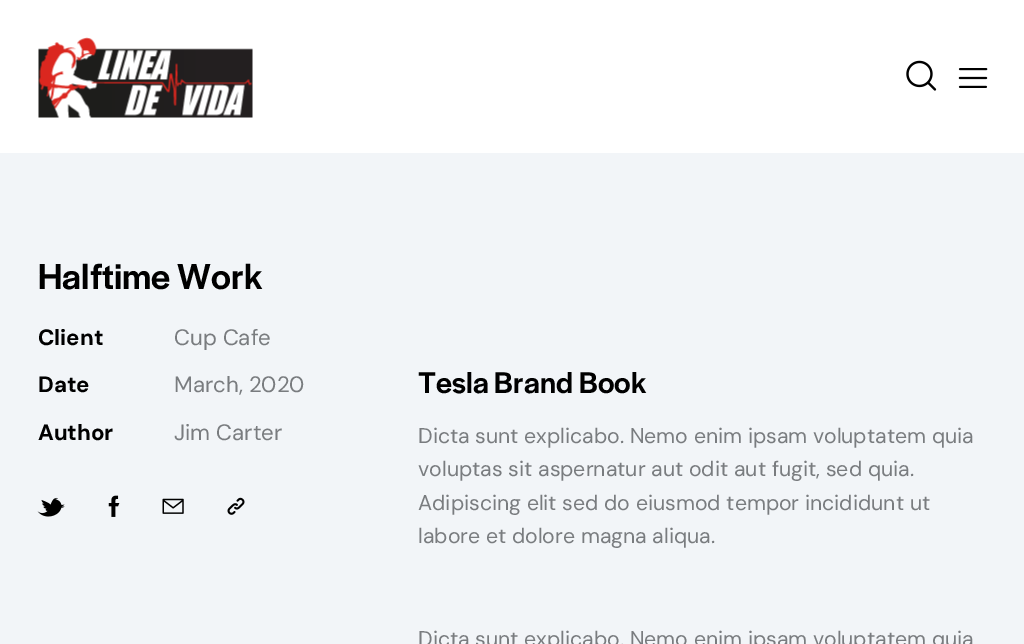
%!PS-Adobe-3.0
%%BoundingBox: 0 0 1024 644
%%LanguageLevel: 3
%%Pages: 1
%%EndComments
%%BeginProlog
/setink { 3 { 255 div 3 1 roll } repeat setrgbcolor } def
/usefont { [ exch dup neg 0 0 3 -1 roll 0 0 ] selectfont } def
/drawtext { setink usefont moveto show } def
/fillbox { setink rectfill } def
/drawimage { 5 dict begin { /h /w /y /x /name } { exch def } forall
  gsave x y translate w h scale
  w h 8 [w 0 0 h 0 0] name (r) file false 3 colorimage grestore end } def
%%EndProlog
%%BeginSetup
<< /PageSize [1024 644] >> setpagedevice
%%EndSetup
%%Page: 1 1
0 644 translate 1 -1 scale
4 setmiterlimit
0 0 1024 644 242 245 248 fillbox
0 0 1024 153 255 255 255 fillbox
(assets/img1.rgb) 38 37 215 81 drawimage
(assets/img2.rgb) 906 60 31 31 drawimage
(assets/img3.rgb) 958 68 30 20 drawimage
(Halftime Work) 38 289 /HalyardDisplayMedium-Medium 37.5 0 0 0 drawtext
(Client) 38 345 /DMSans-Bold 22.25 0 0 0 drawtext
(Cup Cafe) 174 345 /DMSans-Regular 22.25 121 124 127 drawtext
(Date) 38 392 /DMSans-Bold 22.25 0 0 0 drawtext
(March, 2020) 174 392 /DMSans-Regular 22.25 121 124 127 drawtext
(Author) 38 440 /DMSans-Bold 22.25 0 0 0 drawtext
(Jim Carter) 174 440 /DMSans-Regular 22.25 121 124 127 drawtext
(assets/img4.rgb) 37 497 28 20 drawimage
(assets/img5.rgb) 108 495 12 22 drawimage
(assets/img6.rgb) 162 498 22 16 drawimage
(assets/img7.rgb) 227 497 18 18 drawimage
(Tesla Brand Book) 418 393 /HalyardDisplayMedium-Medium 31.25 0 0 0 drawtext
(Dicta sunt explicabo. Nemo enim ipsam voluptatem quia) 418 443 /DMSans-Regular 21.25 121 124 127 drawtext
(voluptas sit aspernatur aut odit aut fugit, sed quia.) 418 476 /DMSans-Regular 21.25 121 124 127 drawtext
(Adipiscing elit sed do eiusmod tempor incididunt ut) 418 510 /DMSans-Regular 21.25 121 124 127 drawtext
(labore et dolore magna aliqua.) 418 543 /DMSans-Regular 21.25 121 124 127 drawtext
(Dicta sunt explicabo. Nemo enim ipsam voluptatem quia) 418 646 /DMSans-Regular 21.25 121 124 127 drawtext
showpage
%%EOF
